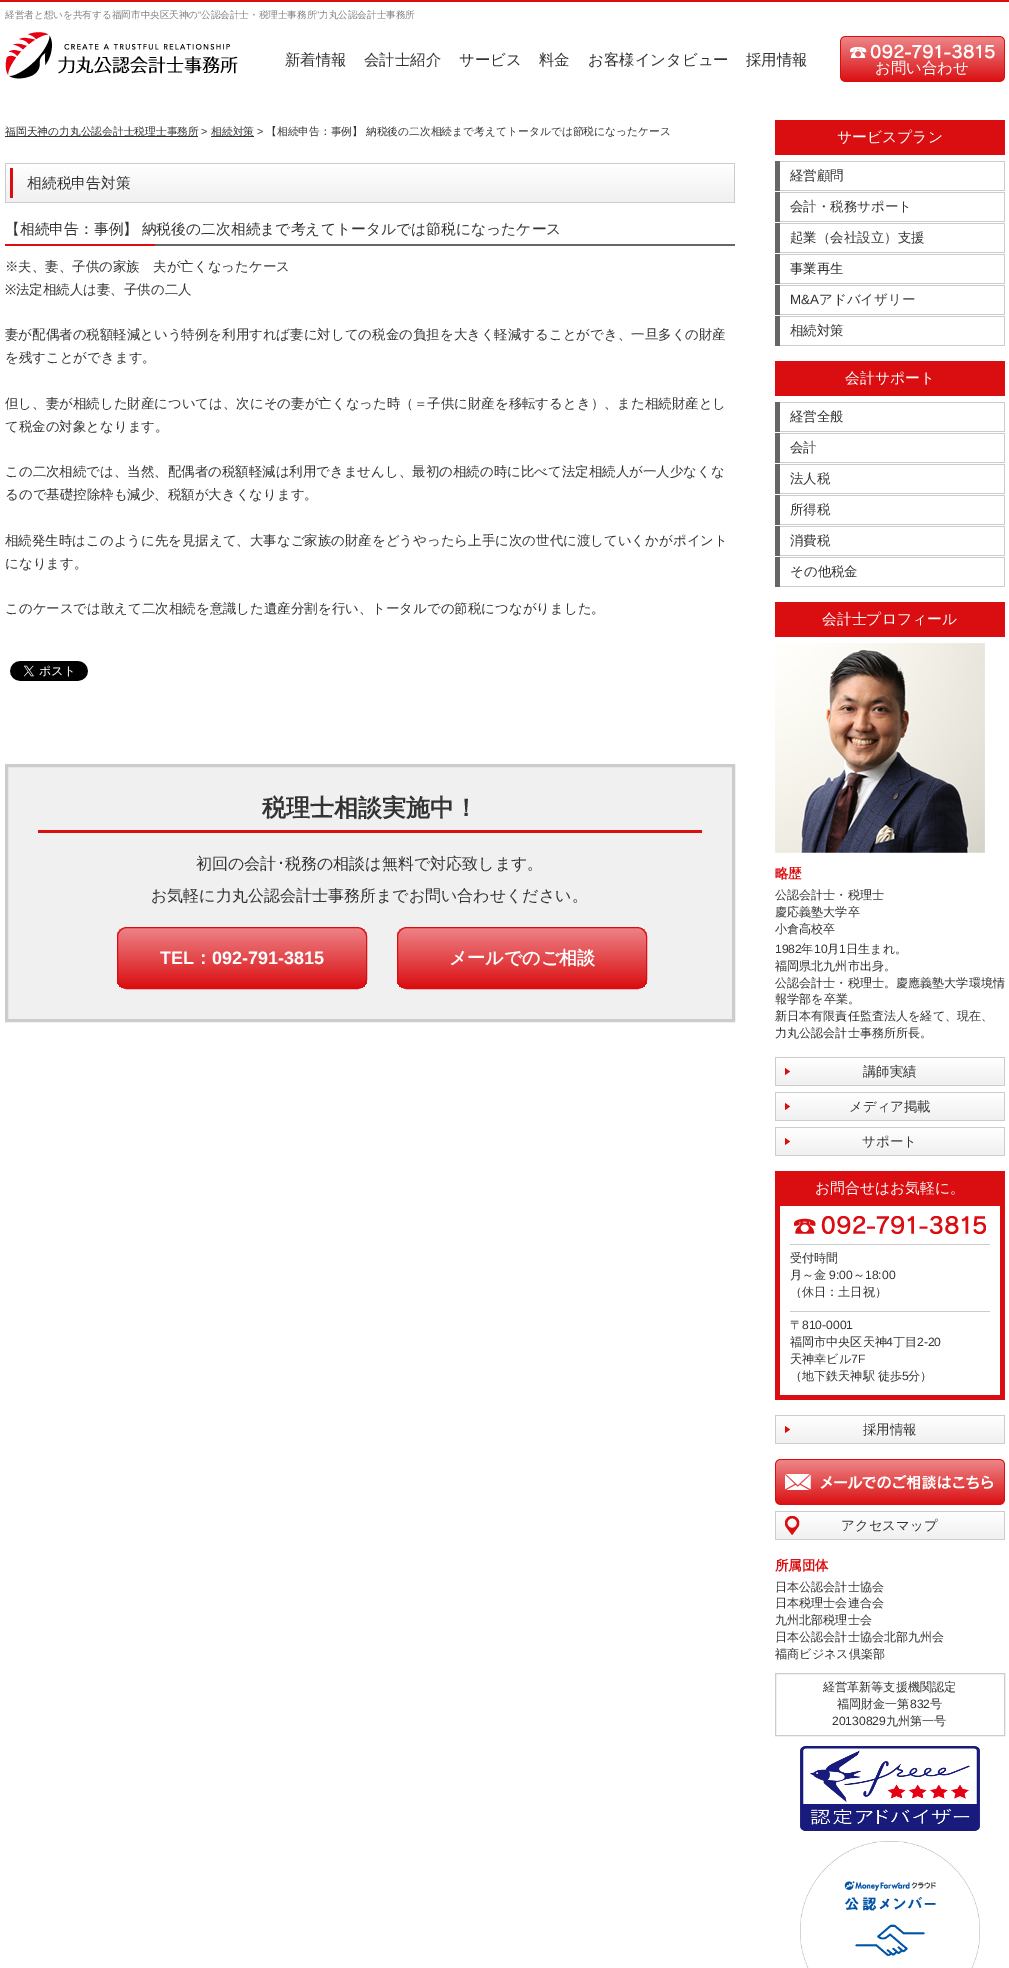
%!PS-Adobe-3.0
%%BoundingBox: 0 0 1009 1968
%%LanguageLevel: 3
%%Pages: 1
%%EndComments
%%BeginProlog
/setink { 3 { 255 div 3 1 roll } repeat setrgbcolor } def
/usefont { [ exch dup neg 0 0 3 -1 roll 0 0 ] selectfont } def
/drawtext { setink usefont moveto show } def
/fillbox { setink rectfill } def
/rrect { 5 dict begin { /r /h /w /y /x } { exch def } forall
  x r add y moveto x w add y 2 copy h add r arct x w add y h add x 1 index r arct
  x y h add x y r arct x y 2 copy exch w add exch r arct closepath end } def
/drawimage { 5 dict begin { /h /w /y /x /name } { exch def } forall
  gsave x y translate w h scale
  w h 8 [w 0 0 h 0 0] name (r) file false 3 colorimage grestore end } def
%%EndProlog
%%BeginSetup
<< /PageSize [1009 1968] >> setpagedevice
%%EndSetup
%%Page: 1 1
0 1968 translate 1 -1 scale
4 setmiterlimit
0 0 1009 1968 255 255 255 fillbox
0 0 1009 2 218 14 17 fillbox
(経営者と想いを共有する福岡市中央区天神の) 5 18 /WenQuanYiZenHei-Medium 9.6 128 128 128 drawtext
(“) 198 18 /LiberationSans-Regular 9.6 128 128 128 drawtext
(公認会計士・税理士事務所) 201 18 /WenQuanYiZenHei-Medium 9.6 128 128 128 drawtext
(”) 316 18 /LiberationSans-Regular 9.6 128 128 128 drawtext
(力丸公認会計士事務所) 319 18 /WenQuanYiZenHei-Medium 9.6 128 128 128 drawtext
(assets/img1.rgb) 5 32 233 47 drawimage
(新着情報) 285 65 /WenQuanYiZenHei-Medium 15.4 51 51 51 drawtext
(会計士紹介) 364 65 /WenQuanYiZenHei-Medium 15.4 51 51 51 drawtext
(サービス) 459 65 /WenQuanYiZenHei-Medium 15.4 51 51 51 drawtext
(料金) 539 65 /WenQuanYiZenHei-Medium 15.4 51 51 51 drawtext
(お客様インタビュー) 588 65 /WenQuanYiZenHei-Medium 15.4 51 51 51 drawtext
(採用情報) 746 65 /WenQuanYiZenHei-Medium 15.4 51 51 51 drawtext
(assets/img2.rgb) 840 36 165 46 drawimage
(お問い合わせ) 875 73 /WenQuanYiZenHei-Medium 15.4 255 255 255 drawtext
5 136 193 1 51 51 51 fillbox
(福岡天神の力丸公認会計士税理士事務所) 5 135 /WenQuanYiZenHei-Medium 10.75 51 51 51 drawtext
(>) 201 135 /LiberationSans-Regular 10.75 51 51 51 drawtext
211 136 43 1 51 51 51 fillbox
(相続対策) 211 135 /WenQuanYiZenHei-Medium 10.75 51 51 51 drawtext
(>) 257 135 /LiberationSans-Regular 10.75 51 51 51 drawtext
(【相続申告：事例】 納税後の二次相続まで考えてトータルでは節税になったケース) 266 135 /WenQuanYiZenHei-Medium 10.75 51 51 51 drawtext
(assets/img3.rgb) 5 163 730 40 drawimage
(相続税申告対策) 27 188 /WenQuanYiZenHei-Medium 14.8 51 51 51 drawtext
(assets/img4.rgb) 5 244 730 2 drawimage
5 234 moveto -1 0 32 (【相続申告：事例】 納税後の二次相続まで考えてトータルでは節税になったケース) widthshow
(※夫、妻、子供の家族　夫が亡くなったケース) 5 271 /WenQuanYiZenHei-Medium 13.45 51 51 51 drawtext
(※) 5 294 /NotoSans-Regular 13.45 51 51 51 drawtext
(法定相続人は妻、子供の二人) 16 294 /WenQuanYiZenHei-Medium 13.45 51 51 51 drawtext
(妻が配偶者の税額軽減という特例を利用すれば妻に対しての税金の負担を大きく軽減することができ、一旦多くの財産) 5 339 /WenQuanYiZenHei-Medium 13.45 51 51 51 drawtext
(を残すことができます。) 5 362 /WenQuanYiZenHei-Medium 13.45 51 51 51 drawtext
(但し、妻が相続した財産については、次にその妻が亡くなった時（＝子供に財産を移転するとき）、また相続財産とし) 5 408 /WenQuanYiZenHei-Medium 13.45 51 51 51 drawtext
(て税金の対象となります。) 5 431 /WenQuanYiZenHei-Medium 13.45 51 51 51 drawtext
(この二次相続では、当然、配偶者の税額軽減は利用できませんし、最初の相続の時に比べて法定相続人が一人少なくな) 5 476 /WenQuanYiZenHei-Medium 13.45 51 51 51 drawtext
(るので基礎控除枠も減少、税額が大きくなります。) 5 499 /WenQuanYiZenHei-Medium 13.45 51 51 51 drawtext
(相続発生時はこのように先を見据えて、大事なご家族の財産をどうやったら上手に次の世代に渡していくかがポイント) 5 545 /WenQuanYiZenHei-Medium 13.45 51 51 51 drawtext
(になります。) 5 568 /WenQuanYiZenHei-Medium 13.45 51 51 51 drawtext
(このケースでは敢えて二次相続を意識した遺産分割を行い、トータルでの節税につながりました。) 5 613 /WenQuanYiZenHei-Medium 13.45 51 51 51 drawtext
(assets/img5.rgb) 10 661 78 20 drawimage
240 240 240 setink
6.5 765.5 moveto 733.5 765.5 lineto 733.5 1020.5 lineto 6.5 1020.5 lineto closepath gsave fill grestore
204 204 204 setink
3 setlinewidth
stroke
38 830 664 3 218 15 18 fillbox
(税理士相談実施中！) 262 816 /WenQuanYiZenHei-Bold 24 51 51 51 drawtext
(初回の会計) 196 869 /WenQuanYiZenHei-Medium 16 51 51 51 drawtext
(･) 277 869 /IPAGothic-Regular 16 51 51 51 drawtext
(税務の相談は無料で対応致します。) 285 869 /WenQuanYiZenHei-Medium 16 51 51 51 drawtext
(お気軽に力丸公認会計士事務所までお問い合わせください。) 151 901 /WenQuanYiZenHei-Medium 16 51 51 51 drawtext
gsave
117 927 250 62 10 rrect clip newpath
gsave 117 928 moveto 367 928 lineto 367 988 lineto 117 988 lineto closepath clip newpath
<< /ShadingType 2 /ColorSpace /DeviceRGB /Coords [242 928 242 988] /Extend [true true] /Function << /FunctionType 2 /Domain [0 1] /C0 [0.929 0.514 0.529] /C1 [0.855 0.055 0.067] /N 1 >> >> shfill grestore
grestore
218 14 17 setink
1 setlinewidth
117.5 927.5 249 61 9.5 rrect stroke
(TEL) 160 964 /LiberationSans-Bold 18 255 255 255 drawtext
(：) 194 964 /WenQuanYiZenHei-Bold 18 255 255 255 drawtext
(092-791-3815) 212 964 /LiberationSans-Bold 18 255 255 255 drawtext
gsave
397 927 250 62 10 rrect clip newpath
gsave 397 928 moveto 647 928 lineto 647 988 lineto 397 988 lineto closepath clip newpath
<< /ShadingType 2 /ColorSpace /DeviceRGB /Coords [522 928 522 988] /Extend [true true] /Function << /FunctionType 2 /Domain [0 1] /C0 [0.929 0.514 0.529] /C1 [0.855 0.055 0.067] /N 1 >> >> shfill grestore
grestore
218 14 17 setink
397.5 927.5 249 61 9.5 rrect stroke
(メールでのご相談) 449 964 /WenQuanYiZenHei-Bold 18 255 255 255 drawtext
775 120 230 35 218 14 17 fillbox
(サービスプラン) 837 142 /WenQuanYiZenHei-Medium 14.8 255 255 255 drawtext
775 161 230 1 204 204 204 fillbox
1004 161 1 30 204 204 204 fillbox
775 190 230 1 204 204 204 fillbox
775 161 5 30 102 102 102 fillbox
(経営顧問) 790 180 /WenQuanYiZenHei-Medium 13.45 51 51 51 drawtext
775 192 230 1 204 204 204 fillbox
1004 192 1 30 204 204 204 fillbox
775 221 230 1 204 204 204 fillbox
775 192 5 30 102 102 102 fillbox
(会計・税務サポート) 790 211 /WenQuanYiZenHei-Medium 13.45 51 51 51 drawtext
775 223 230 1 204 204 204 fillbox
1004 223 1 30 204 204 204 fillbox
775 252 230 1 204 204 204 fillbox
775 223 5 30 102 102 102 fillbox
(起業（会社設立）支援) 790 242 /WenQuanYiZenHei-Medium 13.45 51 51 51 drawtext
775 254 230 1 204 204 204 fillbox
1004 254 1 30 204 204 204 fillbox
775 283 230 1 204 204 204 fillbox
775 254 5 30 102 102 102 fillbox
(事業再生) 790 273 /WenQuanYiZenHei-Medium 13.45 51 51 51 drawtext
775 285 230 1 204 204 204 fillbox
1004 285 1 30 204 204 204 fillbox
775 314 230 1 204 204 204 fillbox
775 285 5 30 102 102 102 fillbox
(M&A) 790 304 /LiberationSans-Regular 13.45 51 51 51 drawtext
(アドバイザリー) 819 304 /WenQuanYiZenHei-Medium 13.45 51 51 51 drawtext
775 316 230 1 204 204 204 fillbox
1004 316 1 30 204 204 204 fillbox
775 345 230 1 204 204 204 fillbox
775 316 5 30 102 102 102 fillbox
(相続対策) 790 335 /WenQuanYiZenHei-Medium 13.45 51 51 51 drawtext
775 361 230 35 218 14 17 fillbox
(会計サポート) 845 383 /WenQuanYiZenHei-Medium 14.8 255 255 255 drawtext
775 402 230 1 204 204 204 fillbox
1004 402 1 30 204 204 204 fillbox
775 431 230 1 204 204 204 fillbox
775 402 5 30 102 102 102 fillbox
(経営全般) 790 421 /WenQuanYiZenHei-Medium 13.45 51 51 51 drawtext
775 433 230 1 204 204 204 fillbox
1004 433 1 30 204 204 204 fillbox
775 462 230 1 204 204 204 fillbox
775 433 5 30 102 102 102 fillbox
(会計) 790 452 /WenQuanYiZenHei-Medium 13.45 51 51 51 drawtext
775 464 230 1 204 204 204 fillbox
1004 464 1 30 204 204 204 fillbox
775 493 230 1 204 204 204 fillbox
775 464 5 30 102 102 102 fillbox
(法人税) 790 483 /WenQuanYiZenHei-Medium 13.45 51 51 51 drawtext
775 495 230 1 204 204 204 fillbox
1004 495 1 30 204 204 204 fillbox
775 524 230 1 204 204 204 fillbox
775 495 5 30 102 102 102 fillbox
(所得税) 790 514 /WenQuanYiZenHei-Medium 13.45 51 51 51 drawtext
775 526 230 1 204 204 204 fillbox
1004 526 1 30 204 204 204 fillbox
775 555 230 1 204 204 204 fillbox
775 526 5 30 102 102 102 fillbox
(消費税) 790 545 /WenQuanYiZenHei-Medium 13.45 51 51 51 drawtext
775 557 230 1 204 204 204 fillbox
1004 557 1 30 204 204 204 fillbox
775 586 230 1 204 204 204 fillbox
775 557 5 30 102 102 102 fillbox
(その他税金) 790 576 /WenQuanYiZenHei-Medium 13.45 51 51 51 drawtext
775 602 230 35 218 14 17 fillbox
(会計士プロフィール) 822 624 /WenQuanYiZenHei-Medium 14.8 255 255 255 drawtext
(assets/img6.rgb) 775 643 210 210 drawimage
(略歴) 775 878 /WenQuanYiZenHei-Bold 13.45 218 14 17 drawtext
(公認会計士・税理士) 775 899 /WenQuanYiZenHei-Medium 12.1 51 51 51 drawtext
(慶応義塾大学卒) 775 916 /WenQuanYiZenHei-Medium 12.1 51 51 51 drawtext
(小倉高校卒) 775 933 /WenQuanYiZenHei-Medium 12.1 51 51 51 drawtext
(1982) 775 953 /LiberationSans-Regular 12.1 51 51 51 drawtext
(年) 801 953 /WenQuanYiZenHei-Medium 12.1 51 51 51 drawtext
(10) 814 953 /LiberationSans-Regular 12.1 51 51 51 drawtext
(月) 827 953 /WenQuanYiZenHei-Medium 12.1 51 51 51 drawtext
(1) 839 953 /LiberationSans-Regular 12.1 51 51 51 drawtext
(日生まれ。) 846 953 /WenQuanYiZenHei-Medium 12.1 51 51 51 drawtext
(福岡県北九州市出身。) 775 970 /WenQuanYiZenHei-Medium 12.1 51 51 51 drawtext
(公認会計士・税理士。慶應義塾大学環境情) 775 987 /WenQuanYiZenHei-Medium 12.1 51 51 51 drawtext
(報学部を卒業。) 775 1003 /WenQuanYiZenHei-Medium 12.1 51 51 51 drawtext
(新日本有限責任監査法人を経て、現在、) 775 1020 /WenQuanYiZenHei-Medium 12.1 51 51 51 drawtext
(力丸公認会計士事務所所長。) 775 1037 /WenQuanYiZenHei-Medium 12.1 51 51 51 drawtext
(assets/img7.rgb) 775 1057 230 29 drawimage
(講師実績) 863 1076 /WenQuanYiZenHei-Medium 13.45 51 51 51 drawtext
(assets/img7.rgb) 775 1092 230 29 drawimage
(メディア掲載) 849 1111 /WenQuanYiZenHei-Medium 13.45 51 51 51 drawtext
(assets/img7.rgb) 775 1127 230 29 drawimage
(サポート) 862 1146 /WenQuanYiZenHei-Medium 13.45 51 51 51 drawtext
1000 1171 5 229 218 14 17 fillbox
775 1395 230 5 218 14 17 fillbox
775 1171 5 229 218 14 17 fillbox
780 1171 220 35 218 14 17 fillbox
(お問合せはお気軽に。) 815 1193 /WenQuanYiZenHei-Medium 14.8 255 255 255 drawtext
(assets/img8.rgb) 794 1216 192 18 drawimage
790 1244 200 1 204 204 204 fillbox
(受付時間) 790 1262 /WenQuanYiZenHei-Medium 12.1 51 51 51 drawtext
(月～金) 790 1279 /WenQuanYiZenHei-Medium 12.1 51 51 51 drawtext
(9:00) 829 1279 /LiberationSans-Regular 12.1 51 51 51 drawtext
(～) 853 1279 /WenQuanYiZenHei-Medium 12.1 51 51 51 drawtext
(18:00) 865 1279 /LiberationSans-Regular 12.1 51 51 51 drawtext
(（休日：土日祝）) 790 1296 /WenQuanYiZenHei-Medium 12.1 51 51 51 drawtext
790 1311 200 1 204 204 204 fillbox
(〒) 790 1329 /WenQuanYiZenHei-Medium 12.1 51 51 51 drawtext
(810-0001) 802 1329 /LiberationSans-Regular 12.1 51 51 51 drawtext
(福岡市中央区天神) 790 1346 /WenQuanYiZenHei-Medium 12.1 51 51 51 drawtext
(4) 886 1346 /LiberationSans-Regular 12.1 51 51 51 drawtext
(丁目) 893 1346 /WenQuanYiZenHei-Medium 12.1 51 51 51 drawtext
(2-20) 917 1346 /LiberationSans-Regular 12.1 51 51 51 drawtext
(天神幸ビル) 790 1363 /WenQuanYiZenHei-Medium 12.1 51 51 51 drawtext
(7F) 851 1363 /LiberationSans-Regular 12.1 51 51 51 drawtext
(（地下鉄天神駅 徒歩) 790 1380 /WenQuanYiZenHei-Medium 12.1 51 51 51 drawtext
(5) 902 1380 /LiberationSans-Regular 12.1 51 51 51 drawtext
(分）) 908 1380 /WenQuanYiZenHei-Medium 12.1 51 51 51 drawtext
(assets/img7.rgb) 775 1415 230 29 drawimage
(採用情報) 863 1434 /WenQuanYiZenHei-Medium 13.45 51 51 51 drawtext
(assets/img9.rgb) 775 1459 230 46 drawimage
(assets/img10.rgb) 775 1511 230 29 drawimage
(アクセスマップ) 841 1530 /WenQuanYiZenHei-Medium 13.45 51 51 51 drawtext
(所属団体) 775 1570 /WenQuanYiZenHei-Bold 13.45 218 14 17 drawtext
(日本公認会計士協会) 775 1591 /WenQuanYiZenHei-Medium 12.1 51 51 51 drawtext
(日本税理士会連合会) 775 1607 /WenQuanYiZenHei-Medium 12.1 51 51 51 drawtext
(九州北部税理士会) 775 1624 /WenQuanYiZenHei-Medium 12.1 51 51 51 drawtext
(日本公認会計士協会北部九州会) 775 1641 /WenQuanYiZenHei-Medium 12.1 51 51 51 drawtext
(福商ビジネス倶楽部) 775 1658 /WenQuanYiZenHei-Medium 12.1 51 51 51 drawtext
204 204 204 setink
775.5 1673.5 229 62 rectstroke
(経営革新等支援機関認定) 823 1691 /WenQuanYiZenHei-Medium 12.1 51 51 51 drawtext
(福岡財金一第) 837 1708 /WenQuanYiZenHei-Medium 12.1 51 51 51 drawtext
(832) 910 1708 /LiberationSans-Regular 12.1 51 51 51 drawtext
(号) 930 1708 /WenQuanYiZenHei-Medium 12.1 51 51 51 drawtext
(20130829) 832 1725 /LiberationSans-Regular 12.1 51 51 51 drawtext
(九州第一号) 886 1725 /WenQuanYiZenHei-Medium 12.1 51 51 51 drawtext
(assets/img11.rgb) 800 1746 180 85 drawimage
(assets/img12.rgb) 800 1841 180 127 drawimage
showpage
%%EOF
